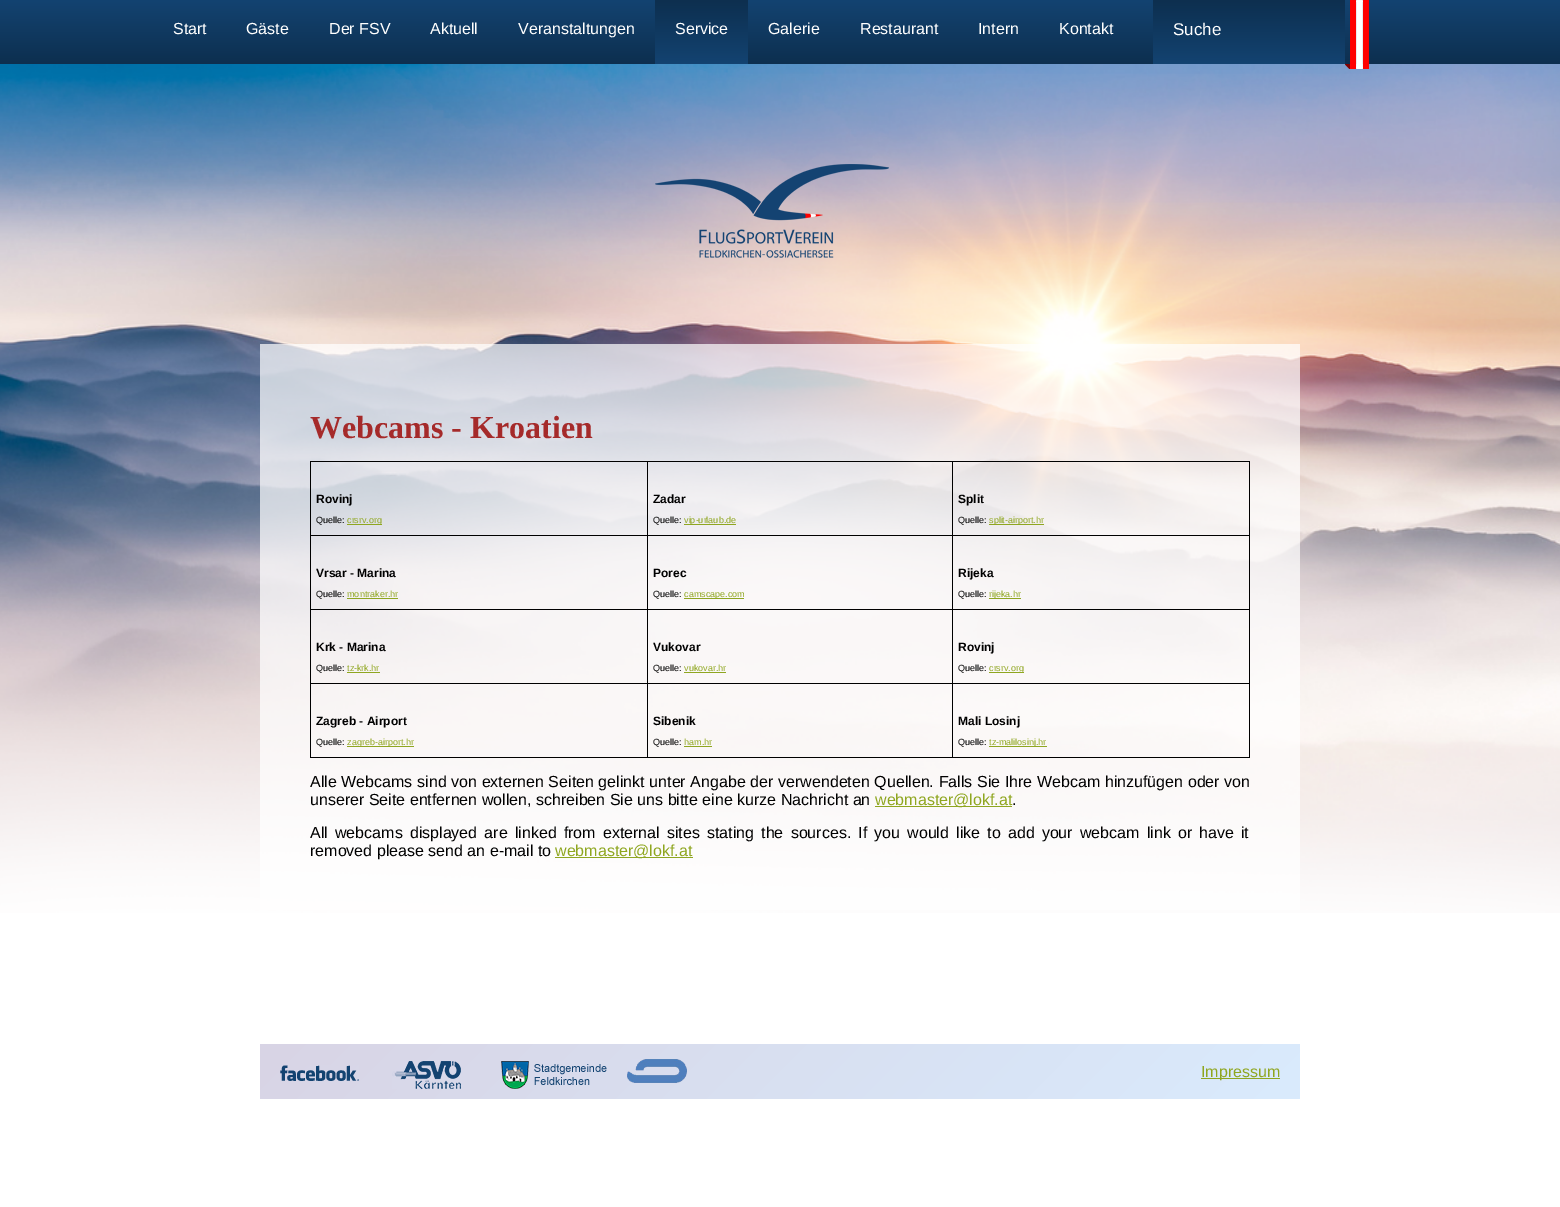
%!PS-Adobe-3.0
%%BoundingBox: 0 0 1560 1207
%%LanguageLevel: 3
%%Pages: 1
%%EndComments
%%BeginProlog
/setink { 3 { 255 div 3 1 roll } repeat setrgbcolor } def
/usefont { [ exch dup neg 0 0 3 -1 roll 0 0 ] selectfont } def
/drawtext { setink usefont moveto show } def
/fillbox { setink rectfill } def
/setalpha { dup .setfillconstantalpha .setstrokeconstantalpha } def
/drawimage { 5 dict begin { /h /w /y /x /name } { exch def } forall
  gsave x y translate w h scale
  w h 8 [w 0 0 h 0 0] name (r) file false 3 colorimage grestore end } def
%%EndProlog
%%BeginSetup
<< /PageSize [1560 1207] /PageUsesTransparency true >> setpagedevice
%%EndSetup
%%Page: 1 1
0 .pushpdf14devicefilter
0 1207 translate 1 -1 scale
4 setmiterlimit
0 0 1560 1207 255 255 255 fillbox
(assets/img1.rgb) 0 64 1560 849 drawimage
gsave 0 0 moveto 1560 0 lineto 1560 64 lineto 0 64 lineto closepath clip newpath
<< /ShadingType 2 /ColorSpace /DeviceRGB /Coords [780 0 780 64] /Extend [true true] /Function << /FunctionType 2 /Domain [0 1] /C0 [0.075 0.263 0.443] /C1 [0.051 0.184 0.31] /N 1 >> >> shfill grestore
(Start) 173 34 /LiberationSans-Regular 16 255 255 255 drawtext
(Gäste) 246 34 /LiberationSans-Regular 16 255 255 255 drawtext
(Der FSV) 329 34 /LiberationSans-Regular 16 255 255 255 drawtext
(Aktuell) 430 34 /LiberationSans-Regular 16 255 255 255 drawtext
(Veranstaltungen) 518 34 /LiberationSans-Regular 16 255 255 255 drawtext
gsave 655 0 moveto 748 0 lineto 748 64 lineto 655 64 lineto closepath clip newpath
<< /ShadingType 2 /ColorSpace /DeviceRGB /Coords [702 0 702 64] /Extend [true true] /Function << /FunctionType 2 /Domain [0 1] /C0 [0.051 0.184 0.31] /C1 [0.075 0.263 0.443] /N 1 >> >> shfill grestore
(Service) 675 34 /LiberationSans-Regular 16 255 255 255 drawtext
(Galerie) 768 34 /LiberationSans-Regular 16 255 255 255 drawtext
(Restaurant) 860 34 /LiberationSans-Regular 16 255 255 255 drawtext
(Intern) 978 34 /LiberationSans-Regular 16 255 255 255 drawtext
(Kontakt) 1059 34 /LiberationSans-Regular 16 255 255 255 drawtext
gsave 1153 0 moveto 1345 0 lineto 1345 64 lineto 1153 64 lineto closepath clip newpath
<< /ShadingType 2 /ColorSpace /DeviceRGB /Coords [1249 0 1249 64] /Extend [true true] /Function << /FunctionType 2 /Domain [0 1] /C0 [0.051 0.184 0.31] /C1 [0.075 0.263 0.443] /N 1 >> >> shfill grestore
(Suche) 1173 35 /LiberationSans-Regular 17 255 255 255 drawtext
(assets/img2.rgb) 1345 0 24 69 drawimage
(assets/img3.rgb) 655 164 234 94 drawimage
0.7 setalpha
260 344 1040 566 255 255 255 fillbox
1 setalpha
(Webcams - Kroatien) 310 438 /LiberationSerif-Bold 32 165 42 42 drawtext
310 461 940 1 0 0 0 fillbox
1249 461 1 297 0 0 0 fillbox
310 757 940 1 0 0 0 fillbox
310 461 1 297 0 0 0 fillbox
(Rovinj) 316 503 /LiberationSans-Bold 12 0 0 0 drawtext
(Quelle:) 316 523 /LiberationSans-Regular 9 0 0 0 drawtext
347 524 35 1 143 166 32 fillbox
(crsrv.org) 347 523 /LiberationSans-Regular 9 143 166 32 drawtext
952 535 298 1 0 0 0 fillbox
952 609 298 1 0 0 0 fillbox
952 683 298 1 0 0 0 fillbox
952 683 1 75 0 0 0 fillbox
647 683 306 1 0 0 0 fillbox
952 609 1 75 0 0 0 fillbox
647 609 306 1 0 0 0 fillbox
952 535 1 75 0 0 0 fillbox
647 535 306 1 0 0 0 fillbox
647 683 1 75 0 0 0 fillbox
310 683 338 1 0 0 0 fillbox
647 609 1 75 0 0 0 fillbox
310 609 338 1 0 0 0 fillbox
647 535 1 75 0 0 0 fillbox
310 535 338 1 0 0 0 fillbox
647 461 1 75 0 0 0 fillbox
(Zadar) 653 503 /LiberationSans-Bold 12 0 0 0 drawtext
(Quelle:) 653 523 /LiberationSans-Regular 9 0 0 0 drawtext
684 524 52 1 143 166 32 fillbox
(vip-urlaub.de) 684 523 /LiberationSans-Regular 9 143 166 32 drawtext
952 461 1 75 0 0 0 fillbox
(Split) 958 503 /LiberationSans-Bold 12 0 0 0 drawtext
(Quelle:) 958 523 /LiberationSans-Regular 9 0 0 0 drawtext
989 524 55 1 143 166 32 fillbox
(split-airport.hr) 989 523 /LiberationSans-Regular 9 143 166 32 drawtext
(Vrsar - Marina) 316 577 /LiberationSans-Bold 12 0 0 0 drawtext
(Quelle:) 316 597 /LiberationSans-Regular 9 0 0 0 drawtext
(montraker.hr) 347 597 /LiberationSans-Regular 9 143 166 32 drawtext
347 598 51 1 143 166 32 fillbox
(Porec) 653 577 /LiberationSans-Bold 12 0 0 0 drawtext
(Quelle:) 653 597 /LiberationSans-Regular 9 0 0 0 drawtext
684 598 60 1 143 166 32 fillbox
(camscape.com) 684 597 /LiberationSans-Regular 9 143 166 32 drawtext
(Rijeka) 958 577 /LiberationSans-Bold 12 0 0 0 drawtext
(Quelle:) 958 597 /LiberationSans-Regular 9 0 0 0 drawtext
989 598 32 1 143 166 32 fillbox
(rijeka.hr) 989 597 /LiberationSans-Regular 9 143 166 32 drawtext
(Krk - Marina) 316 651 /LiberationSans-Bold 12 0 0 0 drawtext
(Quelle:) 316 671 /LiberationSans-Regular 9 0 0 0 drawtext
(tz-krk.hr) 347 671 /LiberationSans-Regular 9 143 166 32 drawtext
347 672 33 1 143 166 32 fillbox
(Vukovar) 653 651 /LiberationSans-Bold 12 0 0 0 drawtext
(Quelle:) 653 671 /LiberationSans-Regular 9 0 0 0 drawtext
(vukovar.hr) 684 671 /LiberationSans-Regular 9 143 166 32 drawtext
684 672 42 1 143 166 32 fillbox
(Rovinj) 958 651 /LiberationSans-Bold 12 0 0 0 drawtext
(Quelle:) 958 671 /LiberationSans-Regular 9 0 0 0 drawtext
989 672 35 1 143 166 32 fillbox
(crsrv.org) 989 671 /LiberationSans-Regular 9 143 166 32 drawtext
(Zagreb - Airport) 316 725 /LiberationSans-Bold 12 0 0 0 drawtext
(Quelle:) 316 745 /LiberationSans-Regular 9 0 0 0 drawtext
347 746 67 1 143 166 32 fillbox
(zagreb-airport.hr) 347 745 /LiberationSans-Regular 9 143 166 32 drawtext
(Sibenik) 653 725 /LiberationSans-Bold 12 0 0 0 drawtext
(Quelle:) 653 745 /LiberationSans-Regular 9 0 0 0 drawtext
(ham.hr) 684 745 /LiberationSans-Regular 9 143 166 32 drawtext
684 746 28 1 143 166 32 fillbox
(Mali Losinj) 958 725 /LiberationSans-Bold 12 0 0 0 drawtext
(Quelle:) 958 745 /LiberationSans-Regular 9 0 0 0 drawtext
989 746 58 1 143 166 32 fillbox
(tz-malilosinj.hr) 989 745 /LiberationSans-Regular 9 143 166 32 drawtext
/LiberationSans-Regular 16 usefont
0 0 0 setink
310 787 moveto 0.2 0 32 (Alle Webcams sind von externen Seiten gelinkt unter Angabe der verwendeten Quellen. Falls Sie Ihre Webcam hinzufügen oder von) widthshow
(unserer Seite entfernen wollen, schreiben Sie uns bitte eine kurze Nachricht an) 310 805 /LiberationSans-Regular 16 0 0 0 drawtext
875 806 137 1 143 166 32 fillbox
(webmaster@lokf.at) 875 805 /LiberationSans-Regular 16 143 166 32 drawtext
(.) 1012 805 /LiberationSans-Regular 16 0 0 0 drawtext
310 838 moveto 2.7 0 32 (All webcams displayed are linked from external sites stating the sources. If you would like to add your webcam link or have it) widthshow
(removed please send an e-mail to) 310 856 /LiberationSans-Regular 16 0 0 0 drawtext
555 857 138 1 143 166 32 fillbox
(webmaster@lokf.at) 555 856 /LiberationSans-Regular 16 143 166 32 drawtext
gsave 260 1044 moveto 1300 1044 lineto 1300 1099 lineto 260 1099 lineto closepath clip newpath
<< /ShadingType 2 /ColorSpace /DeviceRGB /Coords [506 798 1054 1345] /Extend [true true] /Function << /FunctionType 2 /Domain [0 1] /C0 [0.847 0.831 0.898] /C1 [0.851 0.922 0.992] /N 1 >> >> shfill grestore
(assets/img4.rgb) 280 1065 79 16 drawimage
(assets/img5.rgb) 392 1061 69 28 drawimage
(assets/img6.rgb) 501 1061 106 28 drawimage
(assets/img7.rgb) 627 1059 60 24 drawimage
1201 1078 79 1 143 166 32 fillbox
(Impressum) 1201 1077 /LiberationSans-Regular 16 143 166 32 drawtext
.poppdf14devicefilter showpage
%%EOF
